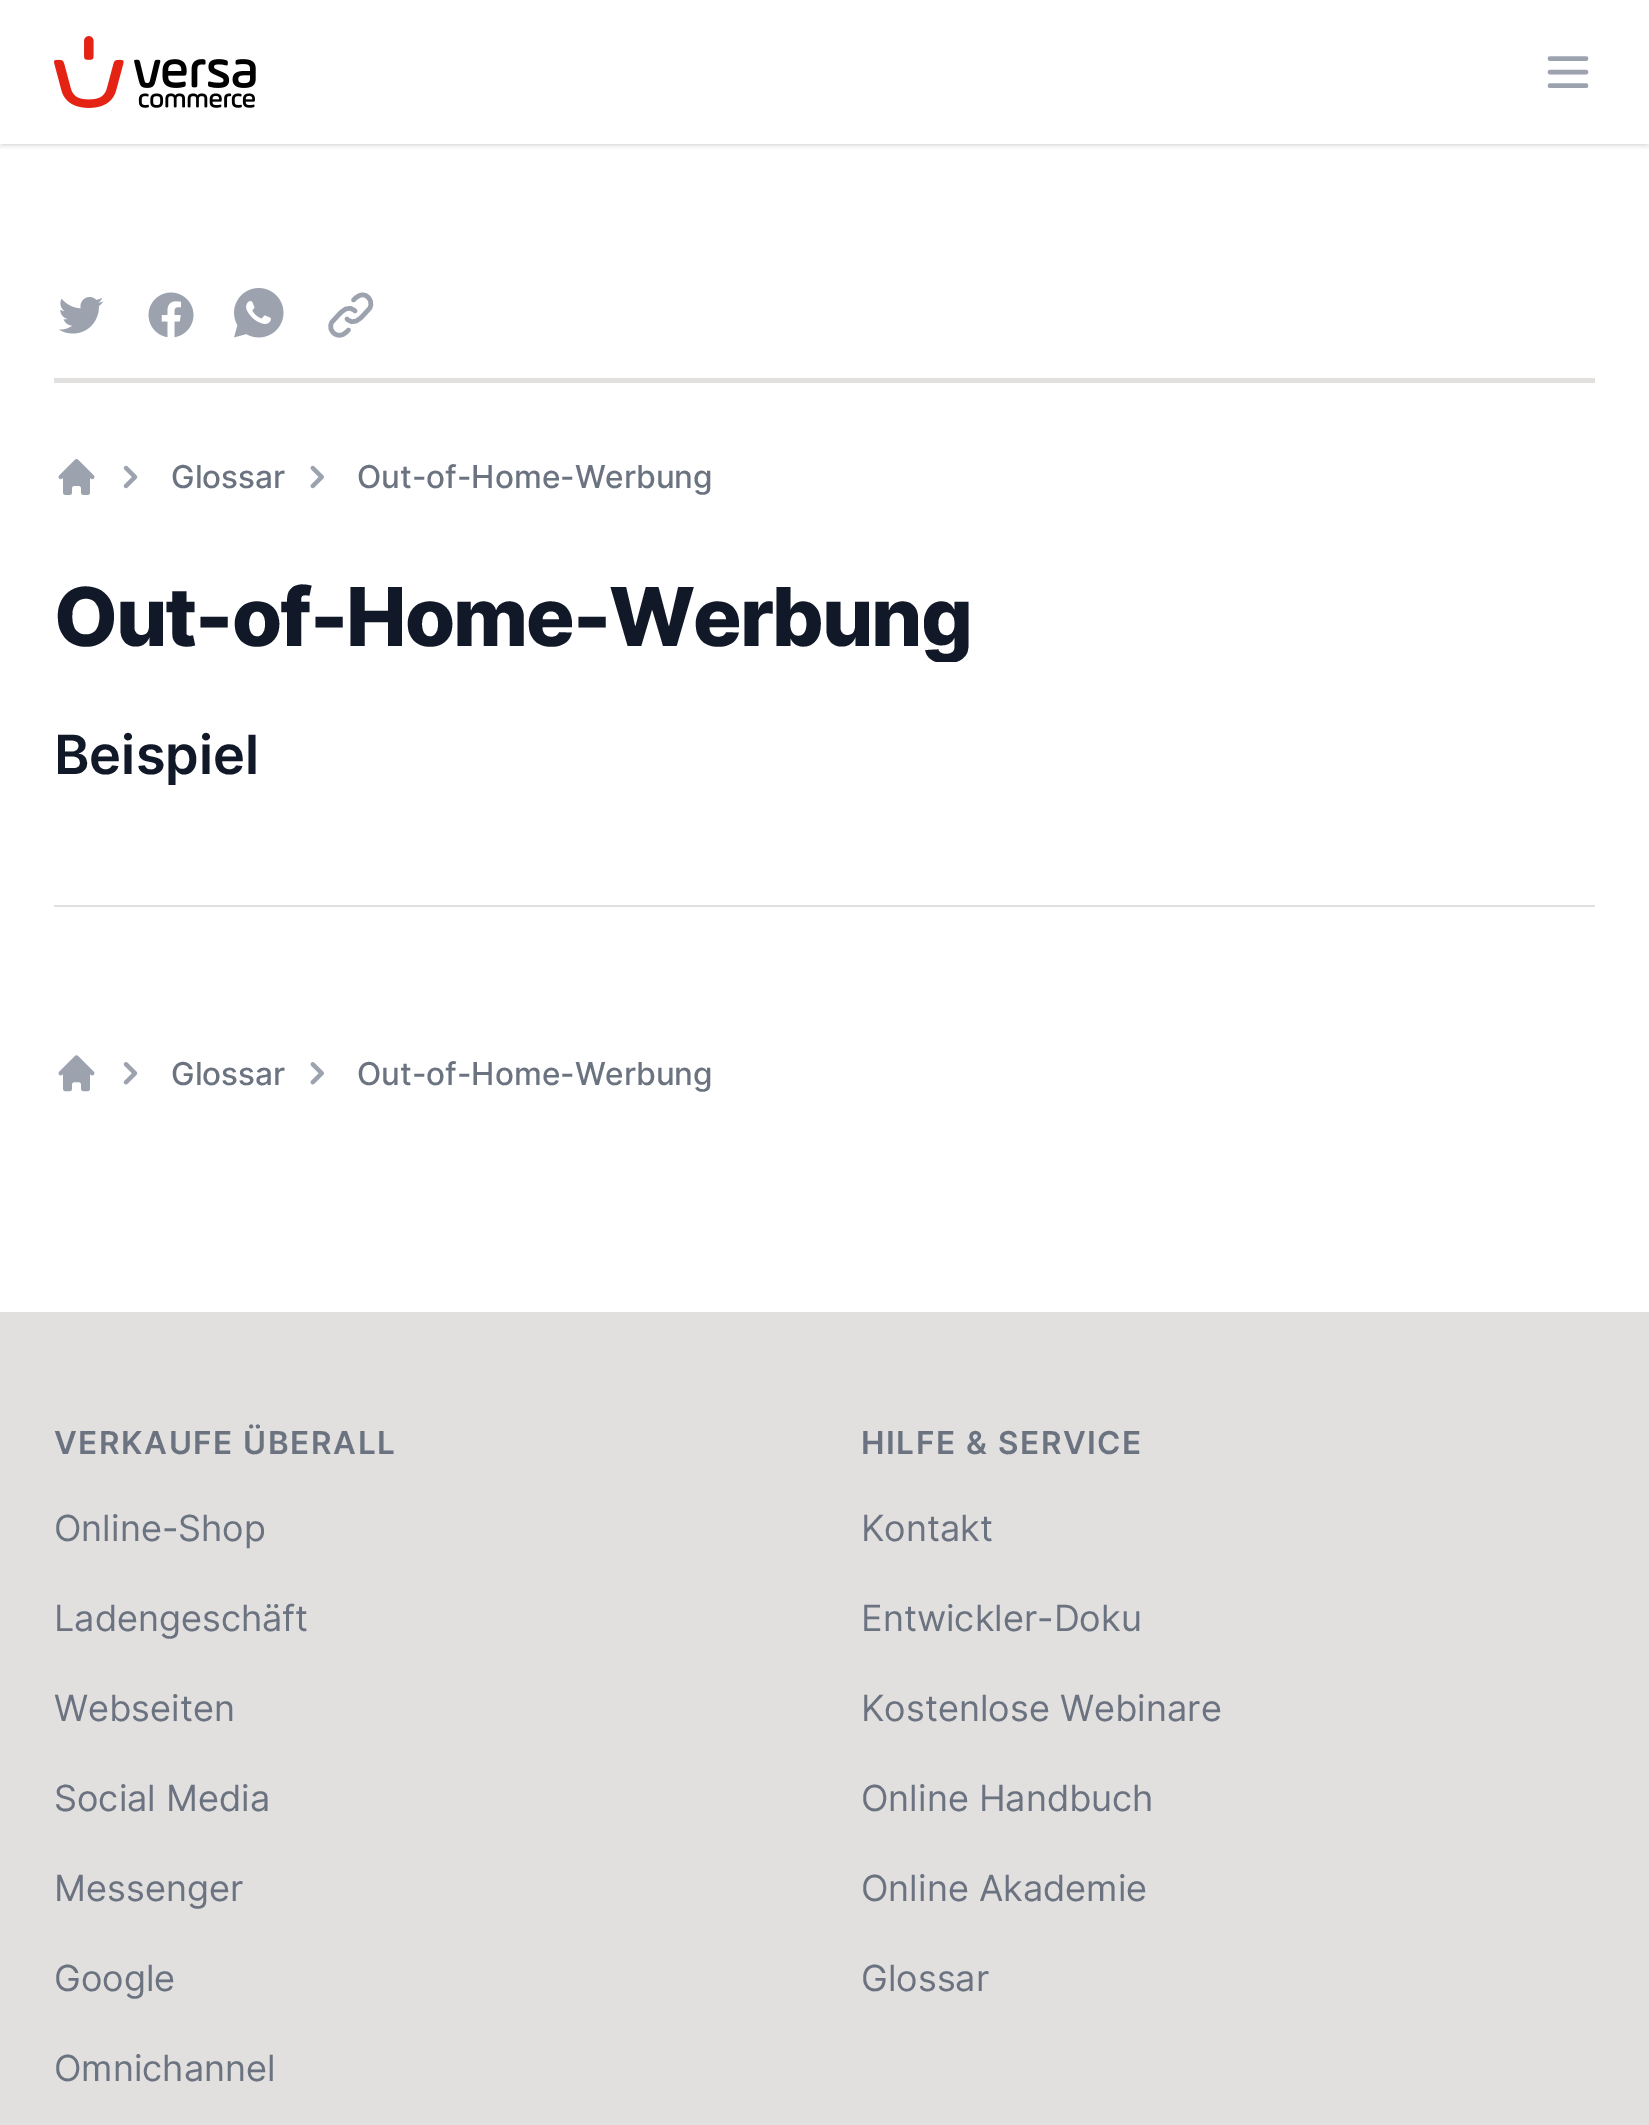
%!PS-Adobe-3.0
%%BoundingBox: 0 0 1649 2125
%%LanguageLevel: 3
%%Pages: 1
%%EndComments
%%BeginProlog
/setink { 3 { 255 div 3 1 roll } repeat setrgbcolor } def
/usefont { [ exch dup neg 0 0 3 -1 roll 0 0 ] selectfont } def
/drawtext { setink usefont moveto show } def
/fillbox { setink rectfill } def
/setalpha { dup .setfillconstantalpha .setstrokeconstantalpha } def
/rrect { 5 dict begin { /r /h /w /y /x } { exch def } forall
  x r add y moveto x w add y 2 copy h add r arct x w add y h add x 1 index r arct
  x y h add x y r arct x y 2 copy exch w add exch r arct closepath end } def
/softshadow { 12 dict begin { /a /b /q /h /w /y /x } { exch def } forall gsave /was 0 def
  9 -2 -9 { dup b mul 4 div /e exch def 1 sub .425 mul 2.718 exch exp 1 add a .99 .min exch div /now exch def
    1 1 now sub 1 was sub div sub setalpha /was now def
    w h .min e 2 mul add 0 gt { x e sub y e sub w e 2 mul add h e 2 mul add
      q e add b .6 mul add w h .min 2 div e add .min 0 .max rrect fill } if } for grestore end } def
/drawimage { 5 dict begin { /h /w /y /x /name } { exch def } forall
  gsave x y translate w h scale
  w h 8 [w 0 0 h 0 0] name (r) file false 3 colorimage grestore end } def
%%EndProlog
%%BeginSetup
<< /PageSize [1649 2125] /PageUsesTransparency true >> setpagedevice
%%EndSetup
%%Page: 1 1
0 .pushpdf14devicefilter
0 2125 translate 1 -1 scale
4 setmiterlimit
0 0 1649 2125 255 255 255 fillbox
gsave
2 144 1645 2 rectclip
0 0 0 setink
2 5 1645 139 0 2 0.1 softshadow
grestore
gsave
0 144 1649 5 rectclip
0 0 0 setink
0 2 1649 144 0 3.5 0.1 softshadow
grestore
(assets/img1.rgb) 54 36 202 72 drawimage
156 163 175 setink
4.5 setlinewidth
1 setlinecap
1 setlinejoin
1550 58.5 moveto 1586 58.5 lineto 1550 72 moveto 1586 72 lineto 1550 85.5 moveto 1586 85.5 lineto stroke
54 378 1541 5 226 224 223 fillbox
(assets/img2.rgb) 58 297 46 37 drawimage
(assets/img3.rgb) 148 292 46 46 drawimage
(assets/img4.rgb) 234 288 50 50 drawimage
156 163 175 setink
355 311 moveto 348.5 304.5 342.5 310.5 338 315.5 curveto 332 322 lineto 329 326.5 331 332.5 336 334.5 curveto 341.5 337 345 333.5 348.5 330 curveto 347 319 moveto 353.5 325.5 359.5 319.5 364 314.5 curveto 369.5 308.5 lineto 372.5 304 370.5 297.5 365.5 295.5 curveto 360.5 293.5 357 296.5 353.5 300 curveto stroke
(assets/img5.rgb) 58 459 37 36 drawimage
(assets/img6.rgb) 123 465 15 24 drawimage
(Glossar) 171 488 /Inter-Medium 31.5 107 114 128 drawtext
(assets/img7.rgb) 310 465 14 24 drawimage
(Out-of-Home-Werbung) 357 488 /Inter-Medium 31.5 107 114 128 drawtext
gsave
54 288 1541 374 rectclip
/Inter-ExtraBold 81 usefont
17 24 39 setink
54 646 moveto -2 0 (Out-of-Home-Werbung) ashow
grestore
(Beispiel) 54 774 /Inter-SemiBold 54 17 24 39 drawtext
54 905 1541 2 226 224 223 fillbox
(assets/img8.rgb) 58 1055 37 37 drawimage
(assets/img9.rgb) 123 1062 15 23 drawimage
(Glossar) 171 1085 /Inter-Medium 31.5 107 114 128 drawtext
(assets/img10.rgb) 310 1062 14 23 drawimage
(Out-of-Home-Werbung) 357 1085 /Inter-Medium 31.5 107 114 128 drawtext
0 1312 1649 813 226 224 223 fillbox
/Inter-SemiBold 31.5 usefont
107 114 128 setink
54 1454 moveto 1.6 0 (VERKAUFE ÜBERALL) ashow
(Online-Shop) 54 1541 /Inter-Regular 36 107 114 128 drawtext
(Ladengeschäft) 54 1631 /Inter-Regular 36 107 114 128 drawtext
(Webseiten) 54 1721 /Inter-Regular 36 107 114 128 drawtext
(Social Media) 54 1811 /Inter-Regular 36 107 114 128 drawtext
(Messenger) 54 1901 /Inter-Regular 36 107 114 128 drawtext
(Google) 54 1991 /Inter-Regular 36 107 114 128 drawtext
(Omnichannel) 54 2081 /Inter-Regular 36 107 114 128 drawtext
/Inter-SemiBold 31.5 usefont
861 1454 moveto 1.6 0 (HILFE & SERVICE) ashow
(Kontakt) 861 1541 /Inter-Regular 36 107 114 128 drawtext
(Entwickler-Doku) 861 1631 /Inter-Regular 36 107 114 128 drawtext
(Kostenlose Webinare) 861 1721 /Inter-Regular 36 107 114 128 drawtext
(Online Handbuch) 861 1811 /Inter-Regular 36 107 114 128 drawtext
(Online Akademie) 861 1901 /Inter-Regular 36 107 114 128 drawtext
(Glossar) 861 1991 /Inter-Regular 36 107 114 128 drawtext
.poppdf14devicefilter showpage
%%EOF
